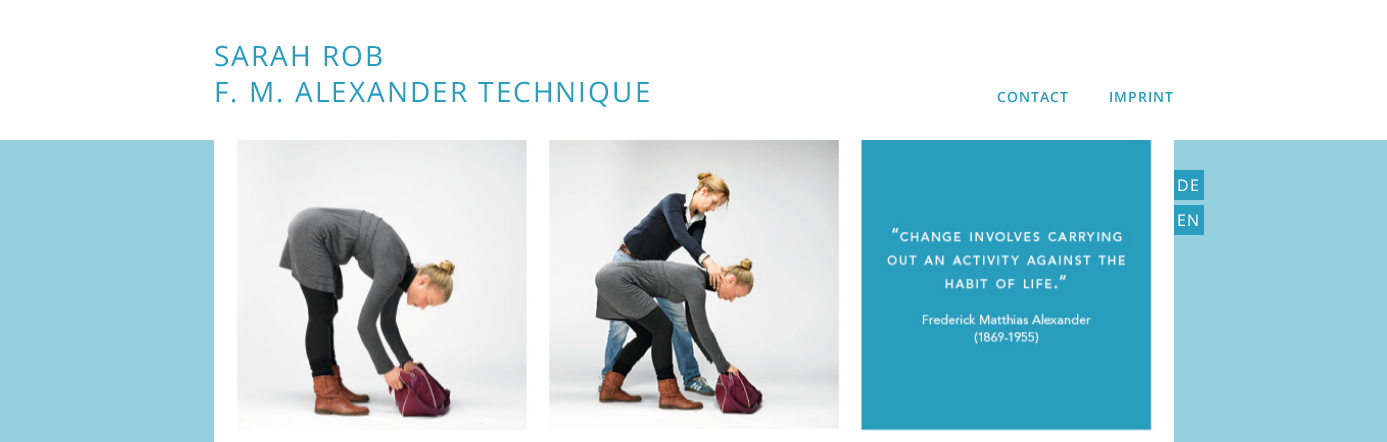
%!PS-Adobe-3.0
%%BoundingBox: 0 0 1387 442
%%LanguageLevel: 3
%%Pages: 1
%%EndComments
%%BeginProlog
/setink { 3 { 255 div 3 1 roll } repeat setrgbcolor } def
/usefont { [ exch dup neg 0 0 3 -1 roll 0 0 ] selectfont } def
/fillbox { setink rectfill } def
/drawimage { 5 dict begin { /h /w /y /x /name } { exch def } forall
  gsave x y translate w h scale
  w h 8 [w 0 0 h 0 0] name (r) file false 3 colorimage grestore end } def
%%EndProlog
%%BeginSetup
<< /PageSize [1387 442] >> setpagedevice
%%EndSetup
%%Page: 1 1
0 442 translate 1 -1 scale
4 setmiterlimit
0 0 1387 442 148 206 223 fillbox
0 0 1387 140 255 255 255 fillbox
214 140 960 302 255 255 255 fillbox
/OpenSans-Regular 28 usefont
41 157 190 setink
214 66 moveto 2 0 (SARAH ROB) ashow
214 102 moveto 2 0 (F. M. ALEXANDER TECHNIQUE) ashow
/OpenSans-SemiBold 14 usefont
997 102 moveto 1 0 (CONTACT) ashow
1109 102 moveto 1 0 (IMPRINT) ashow
(assets/img1.rgb) 236 140 916 292 drawimage
1174 170 30 30 41 157 190 fillbox
/OpenSans-Regular 16 usefont
255 255 255 setink
1177 191 moveto 1 0 (DE) ashow
1174 205 30 30 41 157 190 fillbox
255 255 255 setink
1177 226 moveto 1 0 (EN) ashow
showpage
%%EOF
